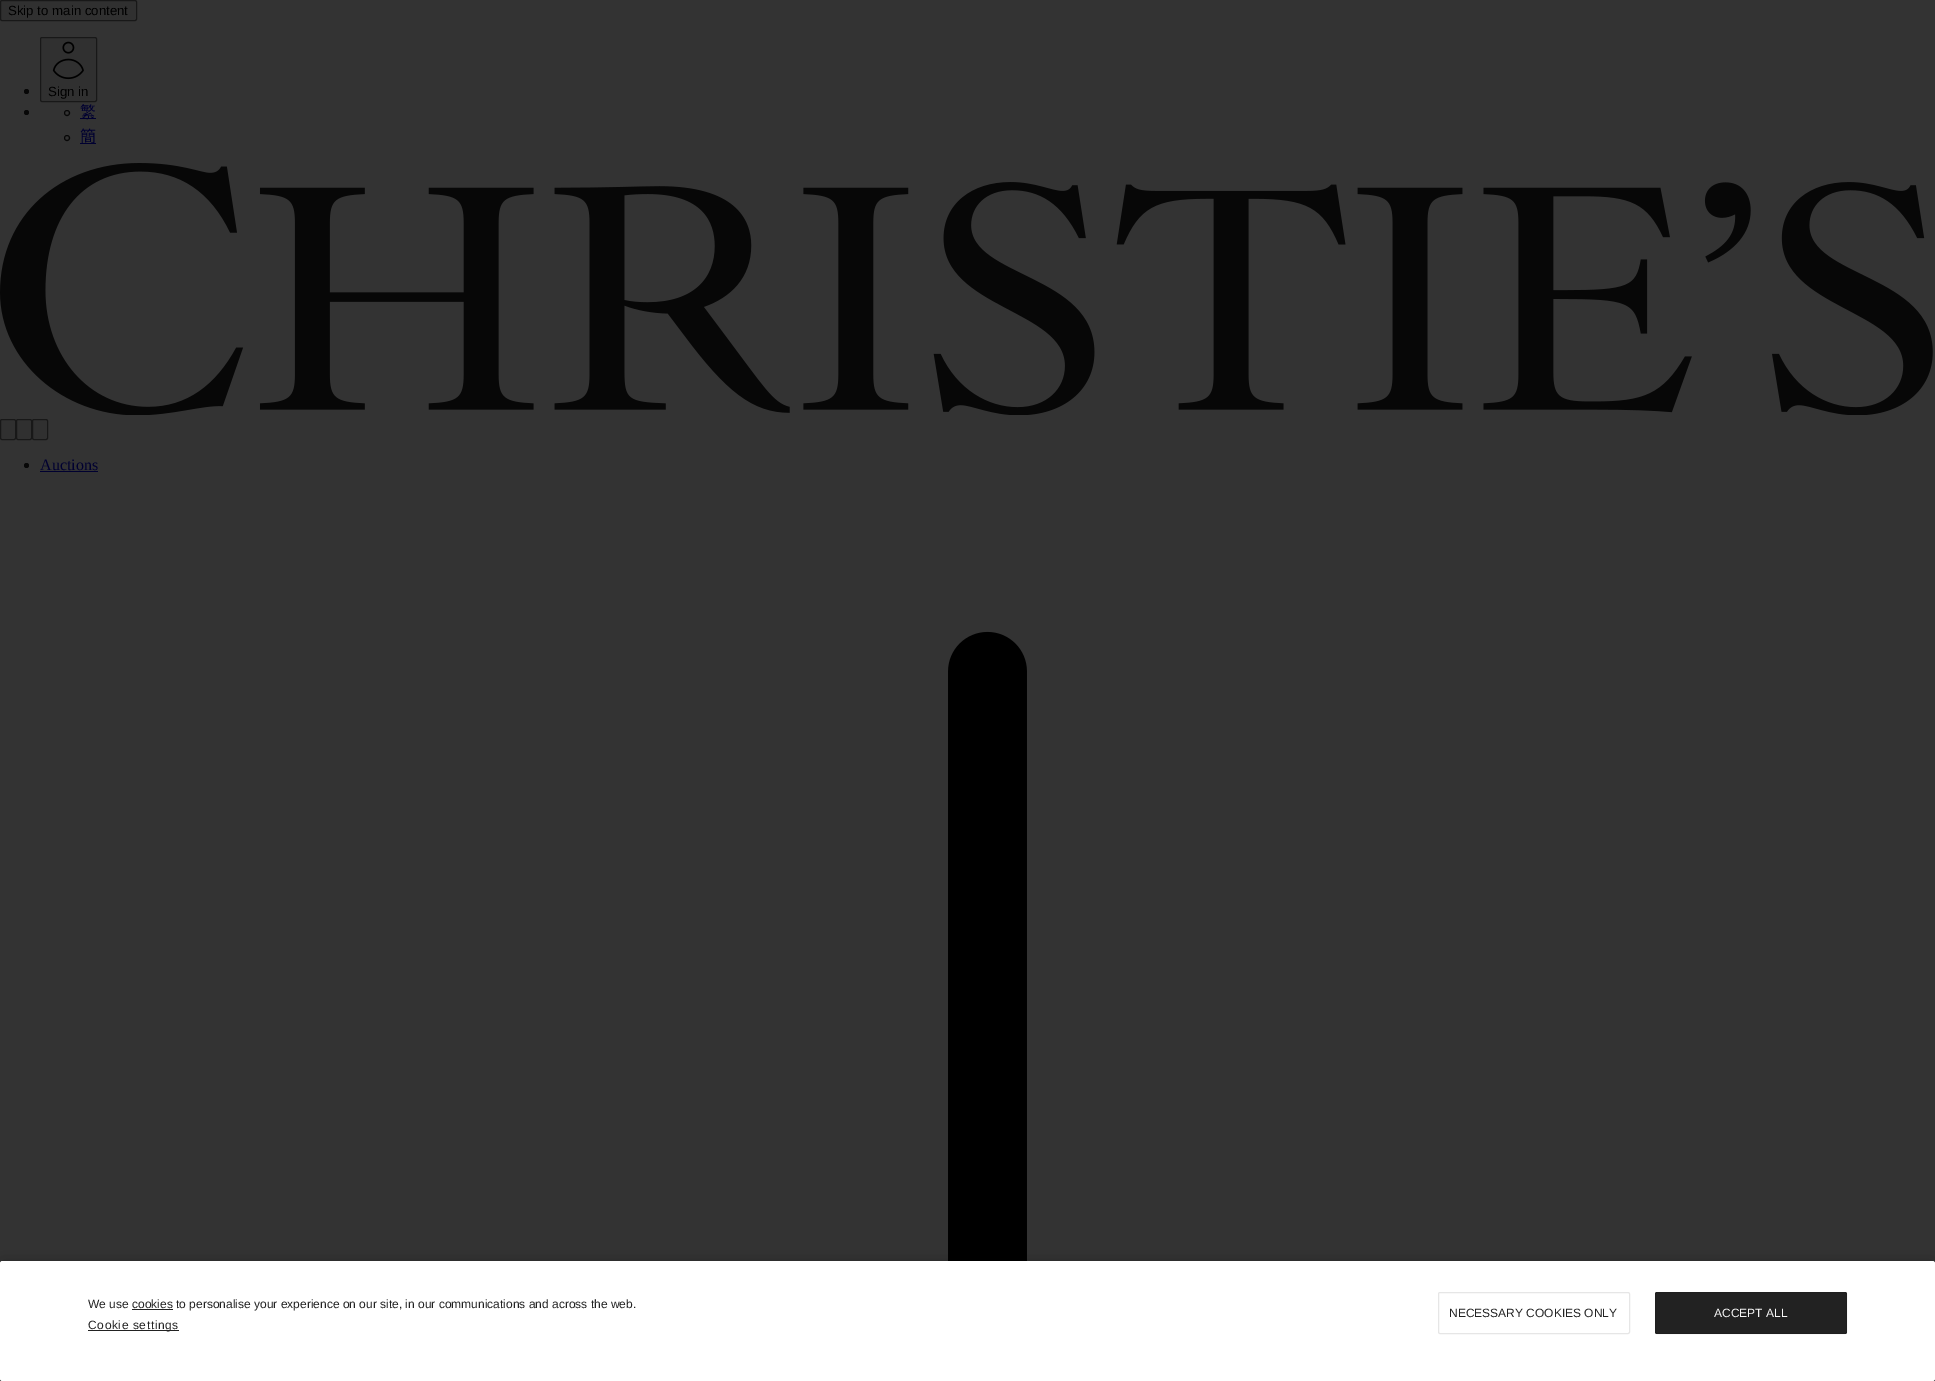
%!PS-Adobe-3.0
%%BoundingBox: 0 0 1935 1381
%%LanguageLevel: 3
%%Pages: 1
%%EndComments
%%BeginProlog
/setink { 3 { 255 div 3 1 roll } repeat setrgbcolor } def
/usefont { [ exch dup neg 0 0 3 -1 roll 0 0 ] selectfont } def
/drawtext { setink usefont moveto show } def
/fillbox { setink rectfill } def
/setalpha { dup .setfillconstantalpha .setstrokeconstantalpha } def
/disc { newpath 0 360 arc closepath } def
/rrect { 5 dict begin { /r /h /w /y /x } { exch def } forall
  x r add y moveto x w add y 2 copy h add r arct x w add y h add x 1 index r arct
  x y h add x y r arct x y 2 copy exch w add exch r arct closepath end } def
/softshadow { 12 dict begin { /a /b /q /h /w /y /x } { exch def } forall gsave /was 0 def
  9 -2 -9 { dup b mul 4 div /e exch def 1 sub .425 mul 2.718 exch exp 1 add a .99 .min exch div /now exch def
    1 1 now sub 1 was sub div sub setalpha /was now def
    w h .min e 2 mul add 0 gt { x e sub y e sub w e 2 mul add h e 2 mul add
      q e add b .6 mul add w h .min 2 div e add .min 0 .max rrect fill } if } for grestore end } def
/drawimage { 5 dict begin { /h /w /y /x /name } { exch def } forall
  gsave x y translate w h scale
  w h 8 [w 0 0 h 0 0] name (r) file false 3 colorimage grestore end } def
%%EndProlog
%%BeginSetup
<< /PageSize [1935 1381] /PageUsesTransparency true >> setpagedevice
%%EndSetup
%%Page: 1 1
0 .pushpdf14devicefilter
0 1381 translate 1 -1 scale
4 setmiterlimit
0 0 1935 1381 51 51 51 fillbox
48 48 48 setink
0.5 0.5 136 20 1.5 rrect gsave fill grestore
24 24 24 setink
stroke
(Skip to main content) 8 15 /LiberationSans-Regular 13.25 0 0 0 drawtext
7 7 7 setink
26.5 91.5 2.5 disc fill
48 48 48 setink
40.5 37.5 56 64 1.5 rrect gsave fill grestore
24 24 24 setink
stroke
(assets/img1.rgb) 52 41 32 39 drawimage
(Sign in) 48 96 /LiberationSans-Regular 13.25 0 0 0 drawtext
7 7 7 setink
26.5 112.5 2.5 disc fill
67 113 2.5 disc stroke
80 118 16 1 0 0 48 fillbox
(繁) 80 117 /WenQuanYiZenHei-Medium 16 0 0 48 drawtext
7 7 7 setink
67 138 2.5 disc stroke
80 143 16 1 0 0 48 fillbox
(簡) 80 142 /NotoSansCJKSC-Regular 16 0 0 48 drawtext
(assets/img2.rgb) 0 163 1933 252 drawimage
48 48 48 setink
0.5 419.5 15 20 1.5 rrect gsave fill grestore
24 24 24 setink
stroke
48 48 48 setink
16.5 419.5 15 20 1.5 rrect gsave fill grestore
24 24 24 setink
stroke
48 48 48 setink
32.5 419.5 15 20 1.5 rrect gsave fill grestore
24 24 24 setink
stroke
7 7 7 setink
26.5 465.5 2.5 disc fill
(Auctions) 40 470 /LiberationSerif-Regular 16 0 0 48 drawtext
40 471 58 1 0 0 48 fillbox
(assets/img3.rgb) 948 631 79 630 drawimage
0 0 0 setink
0 1261 1935 120 2.5 9 0.2 softshadow
255 255 255 setink
0 1261 1935 120 2.5 rrect fill
(We use cookies to personalise your experience on our site, in our communications and across the web.) 88 1308 /LiberationSans-Regular 12 34 34 34 drawtext
132 1309 41 1 34 34 34 fillbox
88 1330 91 1 34 34 34 fillbox
88 1329 moveto 0.6 0 (Cookie settings) ashow
230 230 230 setink
1438.5 1292.5 191 41 1.5 rrect stroke
(NECESSARY COOKIES ONLY) 1449 1317 /LiberationSans-Regular 12 34 34 34 drawtext
1655 1292 192 42 2 rrect fill
0.1 setalpha
0 0 0 setink
1655.5 1292.5 191 41 1.5 rrect stroke
1 setalpha
(ACCEPT ALL) 1714 1317 /LiberationSans-Regular 12 247 247 247 drawtext
.poppdf14devicefilter showpage
%%EOF
